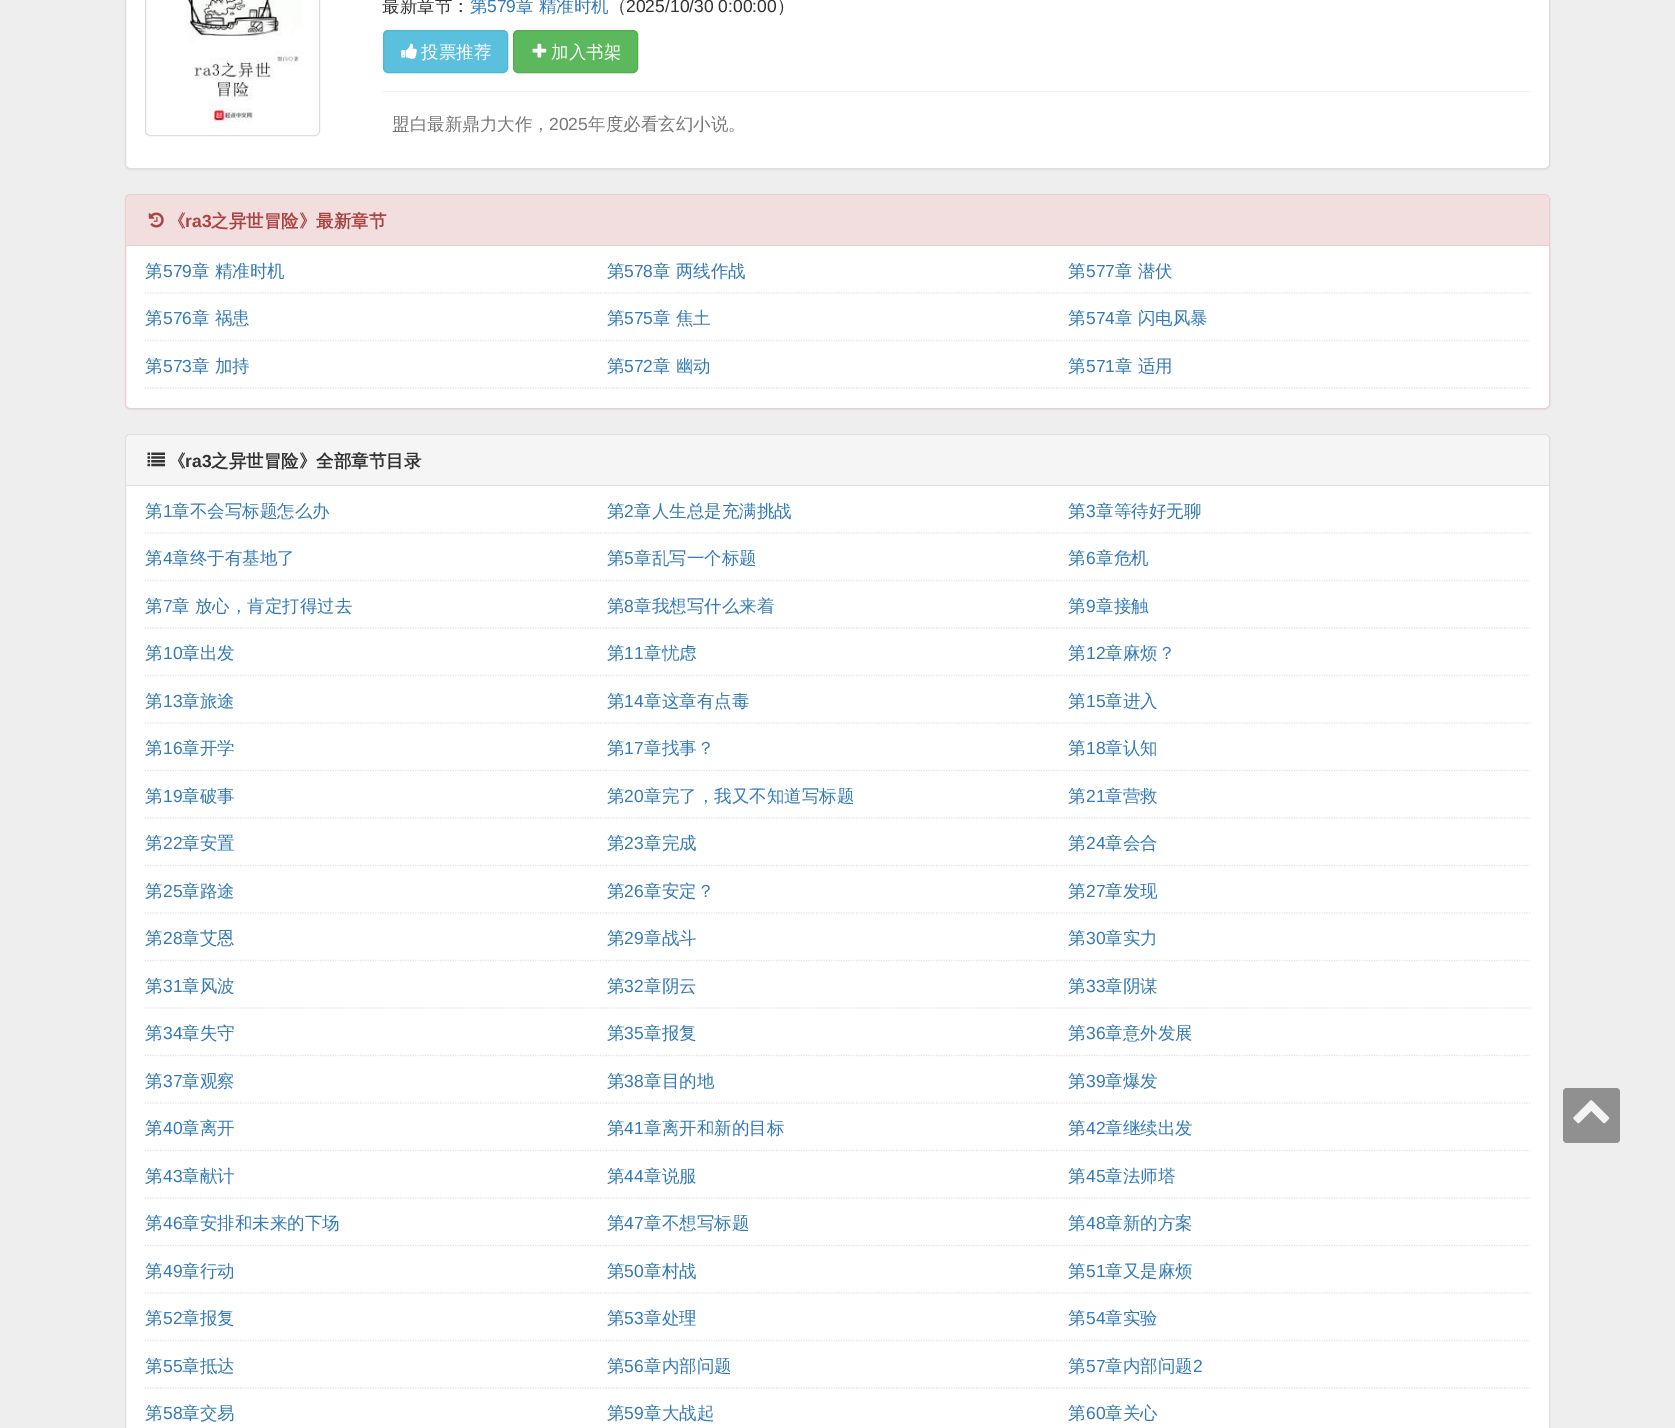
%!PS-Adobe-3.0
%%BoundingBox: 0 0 1675 1428
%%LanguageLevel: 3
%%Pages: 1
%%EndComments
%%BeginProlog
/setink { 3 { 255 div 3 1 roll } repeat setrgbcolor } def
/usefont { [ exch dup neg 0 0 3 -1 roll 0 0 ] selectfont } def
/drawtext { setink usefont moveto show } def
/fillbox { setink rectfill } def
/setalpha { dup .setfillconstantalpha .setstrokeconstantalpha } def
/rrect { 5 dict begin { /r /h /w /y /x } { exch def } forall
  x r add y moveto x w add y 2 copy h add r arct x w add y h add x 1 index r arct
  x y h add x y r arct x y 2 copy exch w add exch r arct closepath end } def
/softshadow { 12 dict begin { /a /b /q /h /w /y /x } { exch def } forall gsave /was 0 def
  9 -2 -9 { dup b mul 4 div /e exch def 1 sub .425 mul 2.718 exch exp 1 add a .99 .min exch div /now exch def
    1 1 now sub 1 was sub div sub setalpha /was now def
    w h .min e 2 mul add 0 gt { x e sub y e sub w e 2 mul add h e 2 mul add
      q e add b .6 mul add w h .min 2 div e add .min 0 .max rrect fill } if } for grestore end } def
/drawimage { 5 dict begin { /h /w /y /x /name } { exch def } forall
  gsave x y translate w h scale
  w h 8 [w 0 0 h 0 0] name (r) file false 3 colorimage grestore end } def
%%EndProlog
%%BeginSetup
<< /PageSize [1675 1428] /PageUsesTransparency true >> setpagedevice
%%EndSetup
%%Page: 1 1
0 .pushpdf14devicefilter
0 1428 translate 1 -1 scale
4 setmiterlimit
0 0 1675 1428 238 238 238 fillbox
0 0 0 setink
125 -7 1425 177 5 0.5 0.05 softshadow
255 255 255 setink
125.5 -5.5 1424 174 4.5 rrect gsave fill grestore
221 221 221 setink
stroke
145.5 -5.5 174 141 4.5 rrect stroke
(assets/img1.rgb) 187 0 116 130 drawimage
(最新章节：) 382 12 /WenQuanYiZenHei-Medium 17.5 51 51 51 drawtext
(第) 470 12 /WenQuanYiZenHei-Medium 17.5 51 122 183 drawtext
(579) 487 12 /LiberationSans-Regular 17.5 51 122 183 drawtext
(章 精准时机) 516 12 /WenQuanYiZenHei-Medium 17.5 51 122 183 drawtext
(（) 609 12 /WenQuanYiZenHei-Medium 17.5 51 51 51 drawtext
(2025/10/30 0:00:00) 626 12 /LiberationSans-Regular 17.5 51 51 51 drawtext
(）) 777 12 /WenQuanYiZenHei-Medium 17.5 51 51 51 drawtext
91 192 222 setink
383.5 30.5 124 42 4.5 rrect gsave fill grestore
70 184 218 setink
stroke
(assets/img2.rgb) 401 43 16 16 drawimage
(投票推荐) 421 58 /WenQuanYiZenHei-Medium 17.5 255 255 255 drawtext
92 184 92 setink
513.5 30.5 124 42 4.5 rrect gsave fill grestore
76 174 76 setink
stroke
(assets/img3.rgb) 532 43 15 15 drawimage
(加入书架) 551 58 /WenQuanYiZenHei-Medium 17.5 255 255 255 drawtext
383 91 1147 1 238 238 238 fillbox
(盟白最新鼎力大作，) 392 130 /WenQuanYiZenHei-Medium 17.5 119 119 119 drawtext
(2025) 549 130 /LiberationSans-Regular 17.5 119 119 119 drawtext
(年度必看玄幻小说。) 588 130 /WenQuanYiZenHei-Medium 17.5 119 119 119 drawtext
0 0 0 setink
125 195 1425 215 5 0.5 0.05 softshadow
255 255 255 setink
125.5 194.5 1424 214 4.5 rrect gsave fill grestore
235 204 209 setink
stroke
242 222 222 setink
130 195 moveto 1545 195 lineto 1547 195 1549 197 1549 199 curveto 1549 246 lineto 126 246 lineto 126 199 lineto 126 197 128 195 130 195 curveto closepath fill
126 245 1423 1 235 204 209 fillbox
(assets/img4.rgb) 148 212 16 16 drawimage
(《) 168 227 /WenQuanYiZenHei-Bold 17.5 169 68 66 drawtext
(ra3) 185 227 /LiberationSans-Bold 17.5 169 68 66 drawtext
(之异世冒险》最新章节) 211 227 /WenQuanYiZenHei-Bold 17.5 169 68 66 drawtext
229 229 229 setink
1.2 setlinewidth
[1.25 1.25] 0 setdash
145 293 moveto 606 293 lineto stroke
(第) 145 277 /WenQuanYiZenHei-Medium 17.5 51 122 183 drawtext
(579) 163 277 /LiberationSans-Regular 17.5 51 122 183 drawtext
(章 精准时机) 192 277 /WenQuanYiZenHei-Medium 17.5 51 122 183 drawtext
229 229 229 setink
606 293 moveto 1069 293 lineto stroke
(第) 607 277 /WenQuanYiZenHei-Medium 17.5 51 122 183 drawtext
(578) 624 277 /LiberationSans-Regular 17.5 51 122 183 drawtext
(章 两线作战) 653 277 /WenQuanYiZenHei-Medium 17.5 51 122 183 drawtext
229 229 229 setink
1069 293 moveto 1530 293 lineto stroke
(第) 1068 277 /WenQuanYiZenHei-Medium 17.5 51 122 183 drawtext
(577) 1086 277 /LiberationSans-Regular 17.5 51 122 183 drawtext
(章 潜伏) 1115 277 /WenQuanYiZenHei-Medium 17.5 51 122 183 drawtext
229 229 229 setink
145 340.5 moveto 606 340.5 lineto stroke
(第) 145 324 /WenQuanYiZenHei-Medium 17.5 51 122 183 drawtext
(576) 163 324 /LiberationSans-Regular 17.5 51 122 183 drawtext
(章 祸患) 192 324 /WenQuanYiZenHei-Medium 17.5 51 122 183 drawtext
229 229 229 setink
606 340.5 moveto 1069 340.5 lineto stroke
(第) 607 324 /WenQuanYiZenHei-Medium 17.5 51 122 183 drawtext
(575) 624 324 /LiberationSans-Regular 17.5 51 122 183 drawtext
(章 焦土) 653 324 /WenQuanYiZenHei-Medium 17.5 51 122 183 drawtext
229 229 229 setink
1069 340.5 moveto 1530 340.5 lineto stroke
(第) 1068 324 /WenQuanYiZenHei-Medium 17.5 51 122 183 drawtext
(574) 1086 324 /LiberationSans-Regular 17.5 51 122 183 drawtext
(章 闪电风暴) 1115 324 /WenQuanYiZenHei-Medium 17.5 51 122 183 drawtext
229 229 229 setink
145 388 moveto 606 388 lineto stroke
(第) 145 372 /WenQuanYiZenHei-Medium 17.5 51 122 183 drawtext
(573) 163 372 /LiberationSans-Regular 17.5 51 122 183 drawtext
(章 加持) 192 372 /WenQuanYiZenHei-Medium 17.5 51 122 183 drawtext
229 229 229 setink
606 388 moveto 1069 388 lineto stroke
(第) 607 372 /WenQuanYiZenHei-Medium 17.5 51 122 183 drawtext
(572) 624 372 /LiberationSans-Regular 17.5 51 122 183 drawtext
(章 幽动) 653 372 /WenQuanYiZenHei-Medium 17.5 51 122 183 drawtext
229 229 229 setink
1069 388 moveto 1530 388 lineto stroke
(第) 1068 372 /WenQuanYiZenHei-Medium 17.5 51 122 183 drawtext
(571) 1086 372 /LiberationSans-Regular 17.5 51 122 183 drawtext
(章 适用) 1115 372 /WenQuanYiZenHei-Medium 17.5 51 122 183 drawtext
255 255 255 setink
125.5 434.5 1424 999 4.5 rrect gsave fill grestore
221 221 221 setink
1 setlinewidth
[] 0 setdash
stroke
245 245 245 setink
130 435 moveto 1545 435 lineto 1547 435 1549 437 1549 439 curveto 1549 486 lineto 126 486 lineto 126 439 lineto 126 437 128 435 130 435 curveto closepath fill
126 485 1423 1 221 221 221 fillbox
(assets/img5.rgb) 147 452 18 15 drawimage
(《) 168 467 /WenQuanYiZenHei-Bold 17.5 51 51 51 drawtext
(ra3) 185 467 /LiberationSans-Bold 17.5 51 51 51 drawtext
(之异世冒险》全部章节目录) 211 467 /WenQuanYiZenHei-Bold 17.5 51 51 51 drawtext
229 229 229 setink
1.2 setlinewidth
[1.25 1.25] 0 setdash
145 533 moveto 606 533 lineto stroke
(第) 145 517 /WenQuanYiZenHei-Medium 17.5 51 122 183 drawtext
(1) 163 517 /LiberationSans-Regular 17.5 51 122 183 drawtext
(章不会写标题怎么办) 172 517 /WenQuanYiZenHei-Medium 17.5 51 122 183 drawtext
229 229 229 setink
606 533 moveto 1069 533 lineto stroke
(第) 607 517 /WenQuanYiZenHei-Medium 17.5 51 122 183 drawtext
(2) 624 517 /LiberationSans-Regular 17.5 51 122 183 drawtext
(章人生总是充满挑战) 634 517 /WenQuanYiZenHei-Medium 17.5 51 122 183 drawtext
229 229 229 setink
1069 533 moveto 1530 533 lineto stroke
(第) 1068 517 /WenQuanYiZenHei-Medium 17.5 51 122 183 drawtext
(3) 1086 517 /LiberationSans-Regular 17.5 51 122 183 drawtext
(章等待好无聊) 1096 517 /WenQuanYiZenHei-Medium 17.5 51 122 183 drawtext
229 229 229 setink
145 580.5 moveto 606 580.5 lineto stroke
(第) 145 564 /WenQuanYiZenHei-Medium 17.5 51 122 183 drawtext
(4) 163 564 /LiberationSans-Regular 17.5 51 122 183 drawtext
(章终于有基地了) 172 564 /WenQuanYiZenHei-Medium 17.5 51 122 183 drawtext
229 229 229 setink
606 580.5 moveto 1069 580.5 lineto stroke
(第) 607 564 /WenQuanYiZenHei-Medium 17.5 51 122 183 drawtext
(5) 624 564 /LiberationSans-Regular 17.5 51 122 183 drawtext
(章乱写一个标题) 634 564 /WenQuanYiZenHei-Medium 17.5 51 122 183 drawtext
229 229 229 setink
1069 580.5 moveto 1530 580.5 lineto stroke
(第) 1068 564 /WenQuanYiZenHei-Medium 17.5 51 122 183 drawtext
(6) 1086 564 /LiberationSans-Regular 17.5 51 122 183 drawtext
(章危机) 1096 564 /WenQuanYiZenHei-Medium 17.5 51 122 183 drawtext
229 229 229 setink
145 628 moveto 606 628 lineto stroke
(第) 145 612 /WenQuanYiZenHei-Medium 17.5 51 122 183 drawtext
(7) 163 612 /LiberationSans-Regular 17.5 51 122 183 drawtext
(章 放心，肯定打得过去) 172 612 /WenQuanYiZenHei-Medium 17.5 51 122 183 drawtext
229 229 229 setink
606 628 moveto 1069 628 lineto stroke
(第) 607 612 /WenQuanYiZenHei-Medium 17.5 51 122 183 drawtext
(8) 624 612 /LiberationSans-Regular 17.5 51 122 183 drawtext
(章我想写什么来着) 634 612 /WenQuanYiZenHei-Medium 17.5 51 122 183 drawtext
229 229 229 setink
1069 628 moveto 1530 628 lineto stroke
(第) 1068 612 /WenQuanYiZenHei-Medium 17.5 51 122 183 drawtext
(9) 1086 612 /LiberationSans-Regular 17.5 51 122 183 drawtext
(章接触) 1096 612 /WenQuanYiZenHei-Medium 17.5 51 122 183 drawtext
229 229 229 setink
145 675.5 moveto 606 675.5 lineto stroke
(第) 145 659 /WenQuanYiZenHei-Medium 17.5 51 122 183 drawtext
(10) 163 659 /LiberationSans-Regular 17.5 51 122 183 drawtext
(章出发) 182 659 /WenQuanYiZenHei-Medium 17.5 51 122 183 drawtext
229 229 229 setink
606 675.5 moveto 1069 675.5 lineto stroke
(第) 607 659 /WenQuanYiZenHei-Medium 17.5 51 122 183 drawtext
(11) 624 659 /LiberationSans-Regular 17.5 51 122 183 drawtext
(章忧虑) 644 659 /WenQuanYiZenHei-Medium 17.5 51 122 183 drawtext
229 229 229 setink
1069 675.5 moveto 1530 675.5 lineto stroke
(第) 1068 659 /WenQuanYiZenHei-Medium 17.5 51 122 183 drawtext
(12) 1086 659 /LiberationSans-Regular 17.5 51 122 183 drawtext
(章麻烦？) 1105 659 /WenQuanYiZenHei-Medium 17.5 51 122 183 drawtext
229 229 229 setink
145 723 moveto 606 723 lineto stroke
(第) 145 707 /WenQuanYiZenHei-Medium 17.5 51 122 183 drawtext
(13) 163 707 /LiberationSans-Regular 17.5 51 122 183 drawtext
(章旅途) 182 707 /WenQuanYiZenHei-Medium 17.5 51 122 183 drawtext
229 229 229 setink
606 723 moveto 1069 723 lineto stroke
(第) 607 707 /WenQuanYiZenHei-Medium 17.5 51 122 183 drawtext
(14) 624 707 /LiberationSans-Regular 17.5 51 122 183 drawtext
(章这章有点毒) 644 707 /WenQuanYiZenHei-Medium 17.5 51 122 183 drawtext
229 229 229 setink
1069 723 moveto 1530 723 lineto stroke
(第) 1068 707 /WenQuanYiZenHei-Medium 17.5 51 122 183 drawtext
(15) 1086 707 /LiberationSans-Regular 17.5 51 122 183 drawtext
(章进入) 1105 707 /WenQuanYiZenHei-Medium 17.5 51 122 183 drawtext
229 229 229 setink
145 770.5 moveto 606 770.5 lineto stroke
(第) 145 754 /WenQuanYiZenHei-Medium 17.5 51 122 183 drawtext
(16) 163 754 /LiberationSans-Regular 17.5 51 122 183 drawtext
(章开学) 182 754 /WenQuanYiZenHei-Medium 17.5 51 122 183 drawtext
229 229 229 setink
606 770.5 moveto 1069 770.5 lineto stroke
(第) 607 754 /WenQuanYiZenHei-Medium 17.5 51 122 183 drawtext
(17) 624 754 /LiberationSans-Regular 17.5 51 122 183 drawtext
(章找事？) 644 754 /WenQuanYiZenHei-Medium 17.5 51 122 183 drawtext
229 229 229 setink
1069 770.5 moveto 1530 770.5 lineto stroke
(第) 1068 754 /WenQuanYiZenHei-Medium 17.5 51 122 183 drawtext
(18) 1086 754 /LiberationSans-Regular 17.5 51 122 183 drawtext
(章认知) 1105 754 /WenQuanYiZenHei-Medium 17.5 51 122 183 drawtext
229 229 229 setink
145 818 moveto 606 818 lineto stroke
(第) 145 802 /WenQuanYiZenHei-Medium 17.5 51 122 183 drawtext
(19) 163 802 /LiberationSans-Regular 17.5 51 122 183 drawtext
(章破事) 182 802 /WenQuanYiZenHei-Medium 17.5 51 122 183 drawtext
229 229 229 setink
606 818 moveto 1069 818 lineto stroke
(第) 607 802 /WenQuanYiZenHei-Medium 17.5 51 122 183 drawtext
(20) 624 802 /LiberationSans-Regular 17.5 51 122 183 drawtext
(章完了，我又不知道写标题) 644 802 /WenQuanYiZenHei-Medium 17.5 51 122 183 drawtext
229 229 229 setink
1069 818 moveto 1530 818 lineto stroke
(第) 1068 802 /WenQuanYiZenHei-Medium 17.5 51 122 183 drawtext
(21) 1086 802 /LiberationSans-Regular 17.5 51 122 183 drawtext
(章营救) 1105 802 /WenQuanYiZenHei-Medium 17.5 51 122 183 drawtext
229 229 229 setink
145 865.5 moveto 606 865.5 lineto stroke
(第) 145 849 /WenQuanYiZenHei-Medium 17.5 51 122 183 drawtext
(22) 163 849 /LiberationSans-Regular 17.5 51 122 183 drawtext
(章安置) 182 849 /WenQuanYiZenHei-Medium 17.5 51 122 183 drawtext
229 229 229 setink
606 865.5 moveto 1069 865.5 lineto stroke
(第) 607 849 /WenQuanYiZenHei-Medium 17.5 51 122 183 drawtext
(23) 624 849 /LiberationSans-Regular 17.5 51 122 183 drawtext
(章完成) 644 849 /WenQuanYiZenHei-Medium 17.5 51 122 183 drawtext
229 229 229 setink
1069 865.5 moveto 1530 865.5 lineto stroke
(第) 1068 849 /WenQuanYiZenHei-Medium 17.5 51 122 183 drawtext
(24) 1086 849 /LiberationSans-Regular 17.5 51 122 183 drawtext
(章会合) 1105 849 /WenQuanYiZenHei-Medium 17.5 51 122 183 drawtext
229 229 229 setink
145 913 moveto 606 913 lineto stroke
(第) 145 897 /WenQuanYiZenHei-Medium 17.5 51 122 183 drawtext
(25) 163 897 /LiberationSans-Regular 17.5 51 122 183 drawtext
(章路途) 182 897 /WenQuanYiZenHei-Medium 17.5 51 122 183 drawtext
229 229 229 setink
606 913 moveto 1069 913 lineto stroke
(第) 607 897 /WenQuanYiZenHei-Medium 17.5 51 122 183 drawtext
(26) 624 897 /LiberationSans-Regular 17.5 51 122 183 drawtext
(章安定？) 644 897 /WenQuanYiZenHei-Medium 17.5 51 122 183 drawtext
229 229 229 setink
1069 913 moveto 1530 913 lineto stroke
(第) 1068 897 /WenQuanYiZenHei-Medium 17.5 51 122 183 drawtext
(27) 1086 897 /LiberationSans-Regular 17.5 51 122 183 drawtext
(章发现) 1105 897 /WenQuanYiZenHei-Medium 17.5 51 122 183 drawtext
229 229 229 setink
145 960.5 moveto 606 960.5 lineto stroke
(第) 145 944 /WenQuanYiZenHei-Medium 17.5 51 122 183 drawtext
(28) 163 944 /LiberationSans-Regular 17.5 51 122 183 drawtext
(章艾恩) 182 944 /WenQuanYiZenHei-Medium 17.5 51 122 183 drawtext
229 229 229 setink
606 960.5 moveto 1069 960.5 lineto stroke
(第) 607 944 /WenQuanYiZenHei-Medium 17.5 51 122 183 drawtext
(29) 624 944 /LiberationSans-Regular 17.5 51 122 183 drawtext
(章战斗) 644 944 /WenQuanYiZenHei-Medium 17.5 51 122 183 drawtext
229 229 229 setink
1069 960.5 moveto 1530 960.5 lineto stroke
(第) 1068 944 /WenQuanYiZenHei-Medium 17.5 51 122 183 drawtext
(30) 1086 944 /LiberationSans-Regular 17.5 51 122 183 drawtext
(章实力) 1105 944 /WenQuanYiZenHei-Medium 17.5 51 122 183 drawtext
229 229 229 setink
145 1008 moveto 606 1008 lineto stroke
(第) 145 992 /WenQuanYiZenHei-Medium 17.5 51 122 183 drawtext
(31) 163 992 /LiberationSans-Regular 17.5 51 122 183 drawtext
(章风波) 182 992 /WenQuanYiZenHei-Medium 17.5 51 122 183 drawtext
229 229 229 setink
606 1008 moveto 1069 1008 lineto stroke
(第) 607 992 /WenQuanYiZenHei-Medium 17.5 51 122 183 drawtext
(32) 624 992 /LiberationSans-Regular 17.5 51 122 183 drawtext
(章阴云) 644 992 /WenQuanYiZenHei-Medium 17.5 51 122 183 drawtext
229 229 229 setink
1069 1008 moveto 1530 1008 lineto stroke
(第) 1068 992 /WenQuanYiZenHei-Medium 17.5 51 122 183 drawtext
(33) 1086 992 /LiberationSans-Regular 17.5 51 122 183 drawtext
(章阴谋) 1105 992 /WenQuanYiZenHei-Medium 17.5 51 122 183 drawtext
229 229 229 setink
145 1055.5 moveto 606 1055.5 lineto stroke
(第) 145 1039 /WenQuanYiZenHei-Medium 17.5 51 122 183 drawtext
(34) 163 1039 /LiberationSans-Regular 17.5 51 122 183 drawtext
(章失守) 182 1039 /WenQuanYiZenHei-Medium 17.5 51 122 183 drawtext
229 229 229 setink
606 1055.5 moveto 1069 1055.5 lineto stroke
(第) 607 1039 /WenQuanYiZenHei-Medium 17.5 51 122 183 drawtext
(35) 624 1039 /LiberationSans-Regular 17.5 51 122 183 drawtext
(章报复) 644 1039 /WenQuanYiZenHei-Medium 17.5 51 122 183 drawtext
229 229 229 setink
1069 1055.5 moveto 1530 1055.5 lineto stroke
(第) 1068 1039 /WenQuanYiZenHei-Medium 17.5 51 122 183 drawtext
(36) 1086 1039 /LiberationSans-Regular 17.5 51 122 183 drawtext
(章意外发展) 1105 1039 /WenQuanYiZenHei-Medium 17.5 51 122 183 drawtext
229 229 229 setink
145 1103 moveto 606 1103 lineto stroke
(第) 145 1087 /WenQuanYiZenHei-Medium 17.5 51 122 183 drawtext
(37) 163 1087 /LiberationSans-Regular 17.5 51 122 183 drawtext
(章观察) 182 1087 /WenQuanYiZenHei-Medium 17.5 51 122 183 drawtext
229 229 229 setink
606 1103 moveto 1069 1103 lineto stroke
(第) 607 1087 /WenQuanYiZenHei-Medium 17.5 51 122 183 drawtext
(38) 624 1087 /LiberationSans-Regular 17.5 51 122 183 drawtext
(章目的地) 644 1087 /WenQuanYiZenHei-Medium 17.5 51 122 183 drawtext
229 229 229 setink
1069 1103 moveto 1530 1103 lineto stroke
(第) 1068 1087 /WenQuanYiZenHei-Medium 17.5 51 122 183 drawtext
(39) 1086 1087 /LiberationSans-Regular 17.5 51 122 183 drawtext
(章爆发) 1105 1087 /WenQuanYiZenHei-Medium 17.5 51 122 183 drawtext
229 229 229 setink
145 1150.5 moveto 606 1150.5 lineto stroke
(第) 145 1134 /WenQuanYiZenHei-Medium 17.5 51 122 183 drawtext
(40) 163 1134 /LiberationSans-Regular 17.5 51 122 183 drawtext
(章离开) 182 1134 /WenQuanYiZenHei-Medium 17.5 51 122 183 drawtext
229 229 229 setink
606 1150.5 moveto 1069 1150.5 lineto stroke
(第) 607 1134 /WenQuanYiZenHei-Medium 17.5 51 122 183 drawtext
(41) 624 1134 /LiberationSans-Regular 17.5 51 122 183 drawtext
(章离开和新的目标) 644 1134 /WenQuanYiZenHei-Medium 17.5 51 122 183 drawtext
229 229 229 setink
1069 1150.5 moveto 1530 1150.5 lineto stroke
(第) 1068 1134 /WenQuanYiZenHei-Medium 17.5 51 122 183 drawtext
(42) 1086 1134 /LiberationSans-Regular 17.5 51 122 183 drawtext
(章继续出发) 1105 1134 /WenQuanYiZenHei-Medium 17.5 51 122 183 drawtext
229 229 229 setink
145 1198 moveto 606 1198 lineto stroke
(第) 145 1182 /WenQuanYiZenHei-Medium 17.5 51 122 183 drawtext
(43) 163 1182 /LiberationSans-Regular 17.5 51 122 183 drawtext
(章献计) 182 1182 /WenQuanYiZenHei-Medium 17.5 51 122 183 drawtext
229 229 229 setink
606 1198 moveto 1069 1198 lineto stroke
(第) 607 1182 /WenQuanYiZenHei-Medium 17.5 51 122 183 drawtext
(44) 624 1182 /LiberationSans-Regular 17.5 51 122 183 drawtext
(章说服) 644 1182 /WenQuanYiZenHei-Medium 17.5 51 122 183 drawtext
229 229 229 setink
1069 1198 moveto 1530 1198 lineto stroke
(第) 1068 1182 /WenQuanYiZenHei-Medium 17.5 51 122 183 drawtext
(45) 1086 1182 /LiberationSans-Regular 17.5 51 122 183 drawtext
(章法师塔) 1105 1182 /WenQuanYiZenHei-Medium 17.5 51 122 183 drawtext
229 229 229 setink
145 1245.5 moveto 606 1245.5 lineto stroke
(第) 145 1229 /WenQuanYiZenHei-Medium 17.5 51 122 183 drawtext
(46) 163 1229 /LiberationSans-Regular 17.5 51 122 183 drawtext
(章安排和未来的下场) 182 1229 /WenQuanYiZenHei-Medium 17.5 51 122 183 drawtext
229 229 229 setink
606 1245.5 moveto 1069 1245.5 lineto stroke
(第) 607 1229 /WenQuanYiZenHei-Medium 17.5 51 122 183 drawtext
(47) 624 1229 /LiberationSans-Regular 17.5 51 122 183 drawtext
(章不想写标题) 644 1229 /WenQuanYiZenHei-Medium 17.5 51 122 183 drawtext
229 229 229 setink
1069 1245.5 moveto 1530 1245.5 lineto stroke
(第) 1068 1229 /WenQuanYiZenHei-Medium 17.5 51 122 183 drawtext
(48) 1086 1229 /LiberationSans-Regular 17.5 51 122 183 drawtext
(章新的方案) 1105 1229 /WenQuanYiZenHei-Medium 17.5 51 122 183 drawtext
229 229 229 setink
145 1293 moveto 606 1293 lineto stroke
(第) 145 1277 /WenQuanYiZenHei-Medium 17.5 51 122 183 drawtext
(49) 163 1277 /LiberationSans-Regular 17.5 51 122 183 drawtext
(章行动) 182 1277 /WenQuanYiZenHei-Medium 17.5 51 122 183 drawtext
229 229 229 setink
606 1293 moveto 1069 1293 lineto stroke
(第) 607 1277 /WenQuanYiZenHei-Medium 17.5 51 122 183 drawtext
(50) 624 1277 /LiberationSans-Regular 17.5 51 122 183 drawtext
(章村战) 644 1277 /WenQuanYiZenHei-Medium 17.5 51 122 183 drawtext
229 229 229 setink
1069 1293 moveto 1530 1293 lineto stroke
(第) 1068 1277 /WenQuanYiZenHei-Medium 17.5 51 122 183 drawtext
(51) 1086 1277 /LiberationSans-Regular 17.5 51 122 183 drawtext
(章又是麻烦) 1105 1277 /WenQuanYiZenHei-Medium 17.5 51 122 183 drawtext
229 229 229 setink
145 1340.5 moveto 606 1340.5 lineto stroke
(第) 145 1324 /WenQuanYiZenHei-Medium 17.5 51 122 183 drawtext
(52) 163 1324 /LiberationSans-Regular 17.5 51 122 183 drawtext
(章报复) 182 1324 /WenQuanYiZenHei-Medium 17.5 51 122 183 drawtext
229 229 229 setink
606 1340.5 moveto 1069 1340.5 lineto stroke
(第) 607 1324 /WenQuanYiZenHei-Medium 17.5 51 122 183 drawtext
(53) 624 1324 /LiberationSans-Regular 17.5 51 122 183 drawtext
(章处理) 644 1324 /WenQuanYiZenHei-Medium 17.5 51 122 183 drawtext
229 229 229 setink
1069 1340.5 moveto 1530 1340.5 lineto stroke
(第) 1068 1324 /WenQuanYiZenHei-Medium 17.5 51 122 183 drawtext
(54) 1086 1324 /LiberationSans-Regular 17.5 51 122 183 drawtext
(章实验) 1105 1324 /WenQuanYiZenHei-Medium 17.5 51 122 183 drawtext
229 229 229 setink
145 1388 moveto 606 1388 lineto stroke
(第) 145 1372 /WenQuanYiZenHei-Medium 17.5 51 122 183 drawtext
(55) 163 1372 /LiberationSans-Regular 17.5 51 122 183 drawtext
(章抵达) 182 1372 /WenQuanYiZenHei-Medium 17.5 51 122 183 drawtext
229 229 229 setink
606 1388 moveto 1069 1388 lineto stroke
(第) 607 1372 /WenQuanYiZenHei-Medium 17.5 51 122 183 drawtext
(56) 624 1372 /LiberationSans-Regular 17.5 51 122 183 drawtext
(章内部问题) 644 1372 /WenQuanYiZenHei-Medium 17.5 51 122 183 drawtext
229 229 229 setink
1069 1388 moveto 1530 1388 lineto stroke
(第) 1068 1372 /WenQuanYiZenHei-Medium 17.5 51 122 183 drawtext
(57) 1086 1372 /LiberationSans-Regular 17.5 51 122 183 drawtext
(章内部问题) 1105 1372 /WenQuanYiZenHei-Medium 17.5 51 122 183 drawtext
(2) 1193 1372 /LiberationSans-Regular 17.5 51 122 183 drawtext
(第) 145 1419 /WenQuanYiZenHei-Medium 17.5 51 122 183 drawtext
(58) 163 1419 /LiberationSans-Regular 17.5 51 122 183 drawtext
(章交易) 182 1419 /WenQuanYiZenHei-Medium 17.5 51 122 183 drawtext
(第) 607 1419 /WenQuanYiZenHei-Medium 17.5 51 122 183 drawtext
(59) 624 1419 /LiberationSans-Regular 17.5 51 122 183 drawtext
(章大战起) 644 1419 /WenQuanYiZenHei-Medium 17.5 51 122 183 drawtext
(第) 1068 1419 /WenQuanYiZenHei-Medium 17.5 51 122 183 drawtext
(60) 1086 1419 /LiberationSans-Regular 17.5 51 122 183 drawtext
(章关心) 1105 1419 /WenQuanYiZenHei-Medium 17.5 51 122 183 drawtext
144 144 144 setink
1563 1088 57 55 4 rrect fill
(assets/img6.rgb) 1573 1100 37 24 drawimage
.poppdf14devicefilter showpage
%%EOF
